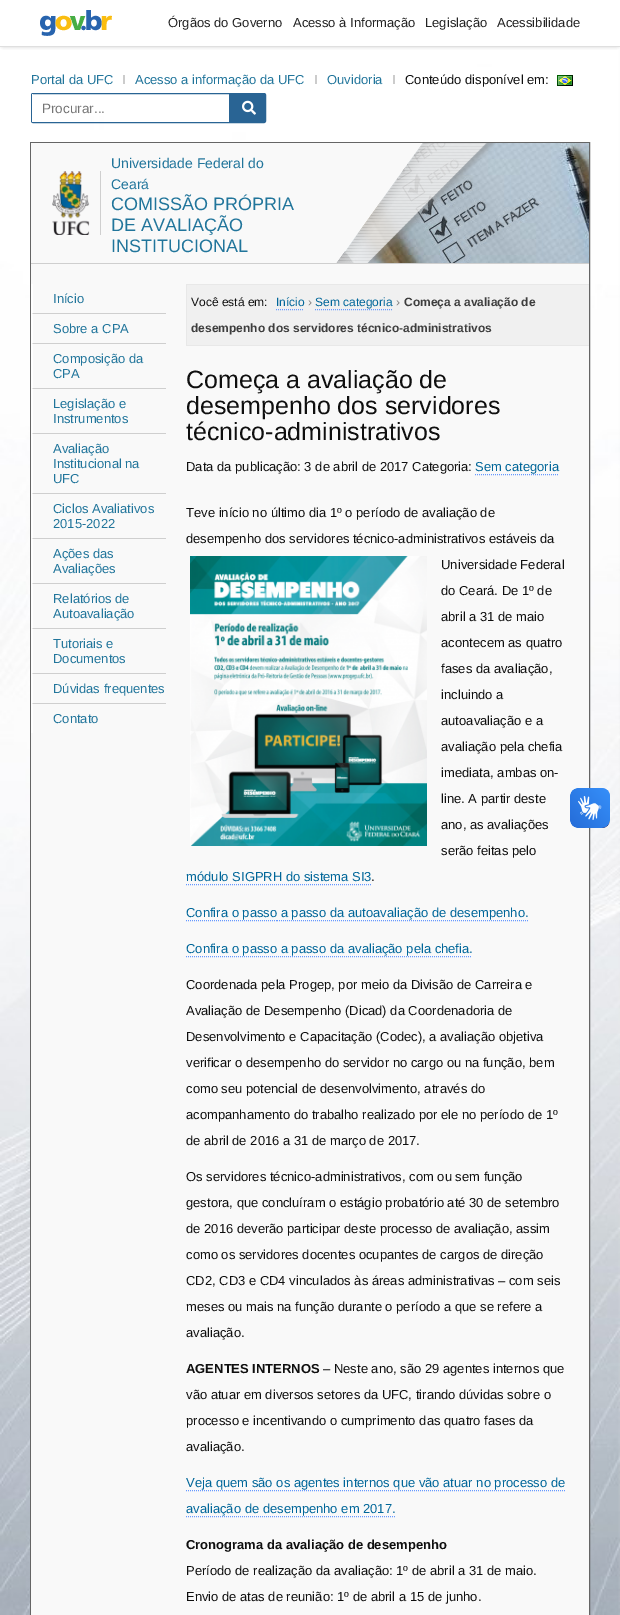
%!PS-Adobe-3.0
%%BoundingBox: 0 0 620 1615
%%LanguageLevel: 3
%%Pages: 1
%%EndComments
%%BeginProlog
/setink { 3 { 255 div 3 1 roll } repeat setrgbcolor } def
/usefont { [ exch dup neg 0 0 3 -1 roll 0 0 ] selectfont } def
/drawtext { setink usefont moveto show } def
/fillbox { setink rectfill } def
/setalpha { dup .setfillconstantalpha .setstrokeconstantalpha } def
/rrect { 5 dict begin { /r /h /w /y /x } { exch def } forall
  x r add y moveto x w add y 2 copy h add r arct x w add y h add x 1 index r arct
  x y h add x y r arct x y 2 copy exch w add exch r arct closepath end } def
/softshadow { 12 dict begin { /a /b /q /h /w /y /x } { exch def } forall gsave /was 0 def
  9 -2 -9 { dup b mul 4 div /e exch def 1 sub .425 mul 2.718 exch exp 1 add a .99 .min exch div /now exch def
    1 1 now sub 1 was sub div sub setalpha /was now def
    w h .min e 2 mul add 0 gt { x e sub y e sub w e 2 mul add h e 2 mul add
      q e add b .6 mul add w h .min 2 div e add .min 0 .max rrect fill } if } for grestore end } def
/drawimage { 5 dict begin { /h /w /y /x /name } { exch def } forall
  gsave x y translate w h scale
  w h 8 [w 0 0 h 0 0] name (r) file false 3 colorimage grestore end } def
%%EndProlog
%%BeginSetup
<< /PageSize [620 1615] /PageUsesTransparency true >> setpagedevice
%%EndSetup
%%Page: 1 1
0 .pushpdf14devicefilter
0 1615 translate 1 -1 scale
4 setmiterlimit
0 0 620 1615 255 255 255 fillbox
(assets/img1.rgb) 0 47 620 1568 drawimage
51 51 51 setink
3 3 614 41 0 2.5 1 softshadow
0 0 620 46 255 255 255 fillbox
0 46 620 1 223 223 223 fillbox
(assets/img2.rgb) 40 10 72 26 drawimage
(Órgãos do Governo) 168 27 /LiberationSans-Regular 13 35 35 35 drawtext
(Acesso à Informação) 293 27 /LiberationSans-Regular 13 35 35 35 drawtext
(Legislação) 425 27 /LiberationSans-Regular 13 35 35 35 drawtext
(Acessibilidade) 497 27 /LiberationSans-Regular 13 35 35 35 drawtext
(Portal da UFC) 31 84 /LiberationSans-Regular 13 33 117 155 drawtext
123 75 2 9 204 204 204 fillbox
(Acesso a informação da UFC) 135 84 /LiberationSans-Regular 13 33 117 155 drawtext
315 75 2 9 204 204 204 fillbox
(Ouvidoria) 327 84 /LiberationSans-Regular 13 33 117 155 drawtext
393 75 2 9 204 204 204 fillbox
(Conteúdo disponível em:) 405 84 /LiberationSans-Regular 13 15 15 15 drawtext
(assets/img3.rgb) 557 75 16 11 drawimage
41 100 148 setink
31.5 93.5 234 29 1.5 rrect stroke
229 94 36 28 41 100 148 fillbox
32 94 1 28 255 255 255 fillbox
(Procurar...) 42 113 /LiberationSans-Regular 13.5 117 117 117 drawtext
(assets/img4.rgb) 242 100 14 15 drawimage
101 101 101 setink
30.5 142.5 559 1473 rectstroke
31 143 558 1472 249 249 249 fillbox
31 263 558 1 207 207 207 fillbox
100 171 1 64 207 207 207 fillbox
(assets/img5.rgb) 52 171 38 64 drawimage
(Universidade Federal do) 111 168 /LiberationSans-Regular 14 33 117 155 drawtext
(Ceará) 111 189 /LiberationSans-Regular 14 33 117 155 drawtext
(COMISSÃO PRÓPRIA) 111 210 /LiberationSans-Regular 18 33 117 155 drawtext
(DE AVALIAÇÃO) 111 231 /LiberationSans-Regular 18 33 117 155 drawtext
(INSTITUCIONAL) 111 252 /LiberationSans-Regular 18 33 117 155 drawtext
(assets/img6.rgb) 336 143 253 120 drawimage
(assets/img7.rgb) 321 143 175 120 drawimage
207 207 207 setink
166 314 moveto 31 314 lineto 33 313 lineto 166 313 lineto closepath fill
255 255 255 setink
31 314 moveto 31 284 lineto 33 284 lineto 33 313 lineto closepath fill
(Início) 53 303 /LiberationSans-Regular 13 33 117 155 drawtext
207 207 207 setink
166 344 moveto 31 344 lineto 33 343 lineto 166 343 lineto closepath fill
255 255 255 setink
31 344 moveto 31 314 lineto 33 314 lineto 33 343 lineto closepath fill
(Sobre a CPA) 53 333 /LiberationSans-Regular 13 33 117 155 drawtext
207 207 207 setink
166 389 moveto 31 389 lineto 33 388 lineto 166 388 lineto closepath fill
255 255 255 setink
31 389 moveto 31 344 lineto 33 344 lineto 33 388 lineto closepath fill
(Composição da) 53 363 /LiberationSans-Regular 13 33 117 155 drawtext
(CPA) 53 378 /LiberationSans-Regular 13 33 117 155 drawtext
207 207 207 setink
166 434 moveto 31 434 lineto 33 433 lineto 166 433 lineto closepath fill
255 255 255 setink
31 434 moveto 31 389 lineto 33 389 lineto 33 433 lineto closepath fill
(Legislação e) 53 408 /LiberationSans-Regular 13 33 117 155 drawtext
(Instrumentos) 53 423 /LiberationSans-Regular 13 33 117 155 drawtext
207 207 207 setink
166 494 moveto 31 494 lineto 33 493 lineto 166 493 lineto closepath fill
255 255 255 setink
31 494 moveto 31 434 lineto 33 434 lineto 33 493 lineto closepath fill
(Avaliação) 53 453 /LiberationSans-Regular 13 33 117 155 drawtext
(Institucional na) 53 468 /LiberationSans-Regular 13 33 117 155 drawtext
(UFC) 53 483 /LiberationSans-Regular 13 33 117 155 drawtext
207 207 207 setink
166 539 moveto 31 539 lineto 33 538 lineto 166 538 lineto closepath fill
255 255 255 setink
31 539 moveto 31 494 lineto 33 494 lineto 33 538 lineto closepath fill
(Ciclos Avaliativos) 53 513 /LiberationSans-Regular 13 33 117 155 drawtext
(2015-2022) 53 528 /LiberationSans-Regular 13 33 117 155 drawtext
207 207 207 setink
166 584 moveto 31 584 lineto 33 583 lineto 166 583 lineto closepath fill
255 255 255 setink
31 584 moveto 31 539 lineto 33 539 lineto 33 583 lineto closepath fill
(Ações das) 53 558 /LiberationSans-Regular 13 33 117 155 drawtext
(Avaliações) 53 573 /LiberationSans-Regular 13 33 117 155 drawtext
207 207 207 setink
166 629 moveto 31 629 lineto 33 628 lineto 166 628 lineto closepath fill
255 255 255 setink
31 629 moveto 31 584 lineto 33 584 lineto 33 628 lineto closepath fill
(Relatórios de) 53 603 /LiberationSans-Regular 13 33 117 155 drawtext
(Autoavaliação) 53 618 /LiberationSans-Regular 13 33 117 155 drawtext
207 207 207 setink
166 674 moveto 31 674 lineto 33 673 lineto 166 673 lineto closepath fill
255 255 255 setink
31 674 moveto 31 629 lineto 33 629 lineto 33 673 lineto closepath fill
(Tutoriais e) 53 648 /LiberationSans-Regular 13 33 117 155 drawtext
(Documentos) 53 663 /LiberationSans-Regular 13 33 117 155 drawtext
207 207 207 setink
166 704 moveto 31 704 lineto 33 703 lineto 166 703 lineto closepath fill
255 255 255 setink
31 704 moveto 31 674 lineto 33 674 lineto 33 703 lineto closepath fill
(Dúvidas frequentes) 53 693 /LiberationSans-Regular 13 33 117 155 drawtext
31 704 2 29 255 255 255 fillbox
(Contato) 53 723 /LiberationSans-Regular 13 33 117 155 drawtext
187 285 402 60 240 240 240 fillbox
186 284 403 1 232 232 232 fillbox
186 345 403 1 232 232 232 fillbox
186 284 1 62 232 232 232 fillbox
(Você está em:) 191 306 /LiberationSans-Regular 12 15 15 15 drawtext
(Início) 276 306 /LiberationSans-Regular 12 0 102 153 drawtext
102 153 255 setink
[1 1] 0 setdash
276 309.5 moveto 304 309.5 lineto stroke
(›) 308 306 /LiberationSans-Regular 12 128 128 128 drawtext
(Sem categoria) 315 306 /LiberationSans-Regular 12 0 102 153 drawtext
102 153 255 setink
315 309.5 moveto 393 309.5 lineto stroke
(›) 396 306 /LiberationSans-Regular 12 128 128 128 drawtext
(Começa a avaliação de) 404 306 /LiberationSans-Bold 12 61 61 61 drawtext
(desempenho dos servidores técnico-administrativos) 191 332 /LiberationSans-Bold 12 61 61 61 drawtext
(Começa a avaliação de) 186 388 /LiberationSans-Regular 25 15 15 15 drawtext
(desempenho dos servidores) 186 414 /LiberationSans-Regular 25 15 15 15 drawtext
(técnico-administrativos) 186 440 /LiberationSans-Regular 25 15 15 15 drawtext
(Data da publicação: 3 de abril de 2017 Categoria:) 186 471 /LiberationSans-Regular 13 15 15 15 drawtext
(Sem categoria) 475 471 /LiberationSans-Regular 13 0 102 153 drawtext
102 153 255 setink
475 474.5 moveto 559 474.5 lineto stroke
(Teve início no último dia 1º o período de avaliação de) 186 517 /LiberationSans-Regular 13 15 15 15 drawtext
(desempenho dos servidores técnico-administrativos estáveis da) 186 543 /LiberationSans-Regular 13 15 15 15 drawtext
(assets/img8.rgb) 190 556 237 290 drawimage
(Universidade Federal) 441 569 /LiberationSans-Regular 13 15 15 15 drawtext
(do Ceará. De 1º de) 441 595 /LiberationSans-Regular 13 15 15 15 drawtext
(abril a 31 de maio) 441 621 /LiberationSans-Regular 13 15 15 15 drawtext
(acontecem as quatro) 441 647 /LiberationSans-Regular 13 15 15 15 drawtext
(fases da avaliação,) 441 673 /LiberationSans-Regular 13 15 15 15 drawtext
(incluindo a) 441 699 /LiberationSans-Regular 13 15 15 15 drawtext
(autoavaliação e a) 441 725 /LiberationSans-Regular 13 15 15 15 drawtext
(avaliação pela chefia) 441 751 /LiberationSans-Regular 13 15 15 15 drawtext
(imediata, ambas on-) 441 777 /LiberationSans-Regular 13 15 15 15 drawtext
(line. A partir deste) 441 803 /LiberationSans-Regular 13 15 15 15 drawtext
(ano, as avaliações) 441 829 /LiberationSans-Regular 13 15 15 15 drawtext
(serão feitas pelo) 441 855 /LiberationSans-Regular 13 15 15 15 drawtext
(módulo SIGPRH do sistema SI3) 186 881 /LiberationSans-Regular 13 0 102 153 drawtext
102 153 255 setink
186 884.5 moveto 371 884.5 lineto stroke
(.) 371 881 /LiberationSans-Regular 13 15 15 15 drawtext
(Confira o passo a passo da autoavaliação de desempenho.) 186 917 /LiberationSans-Regular 13 0 102 153 drawtext
102 153 255 setink
186 920.5 moveto 277 920.5 lineto stroke
277 920.5 moveto 528 920.5 lineto stroke
(Confira o passo a passo da avaliação pela chefia.) 186 953 /LiberationSans-Regular 13 0 102 153 drawtext
102 153 255 setink
186 956.5 moveto 472 956.5 lineto stroke
(Coordenada pela Progep, por meio da Divisão de Carreira e) 186 989 /LiberationSans-Regular 13 15 15 15 drawtext
(Avaliação de Desempenho \(Dicad\) da Coordenadoria de) 186 1015 /LiberationSans-Regular 13 15 15 15 drawtext
(Desenvolvimento e Capacitação \(Codec\), a avaliação objetiva) 186 1041 /LiberationSans-Regular 13 15 15 15 drawtext
(verificar o desempenho do servidor no cargo ou na função, bem) 186 1067 /LiberationSans-Regular 13 15 15 15 drawtext
(como seu potencial de desenvolvimento, através do) 186 1093 /LiberationSans-Regular 13 15 15 15 drawtext
(acompanhamento do trabalho realizado por ele no período de 1º) 186 1119 /LiberationSans-Regular 13 15 15 15 drawtext
(de abril de 2016 a 31 de março de 2017.) 186 1145 /LiberationSans-Regular 13 15 15 15 drawtext
(Os servidores técnico-administrativos, com ou sem função) 186 1181 /LiberationSans-Regular 13 15 15 15 drawtext
(gestora, que concluíram o estágio probatório até 30 de setembro) 186 1207 /LiberationSans-Regular 13 15 15 15 drawtext
(de 2016 deverão participar deste processo de avaliação, assim) 186 1233 /LiberationSans-Regular 13 15 15 15 drawtext
(como os servidores docentes ocupantes de cargos de direção) 186 1259 /LiberationSans-Regular 13 15 15 15 drawtext
(CD2, CD3 e CD4 vinculados às áreas administrativas – com seis) 186 1285 /LiberationSans-Regular 13 15 15 15 drawtext
(meses ou mais na função durante o período a que se refere a) 186 1311 /LiberationSans-Regular 13 15 15 15 drawtext
(avaliação.) 186 1337 /LiberationSans-Regular 13 15 15 15 drawtext
(AGENTES INTERNOS) 186 1373 /LiberationSans-Bold 13 15 15 15 drawtext
(– Neste ano, são 29 agentes internos que) 323 1373 /LiberationSans-Regular 13 15 15 15 drawtext
(vão atuar em diversos setores da UFC, tirando dúvidas sobre o) 186 1399 /LiberationSans-Regular 13 15 15 15 drawtext
(processo e incentivando o cumprimento das quatro fases da) 186 1425 /LiberationSans-Regular 13 15 15 15 drawtext
(avaliação.) 186 1451 /LiberationSans-Regular 13 15 15 15 drawtext
(Veja quem são os agentes internos que vão atuar no processo de) 186 1487 /LiberationSans-Regular 13 0 102 153 drawtext
102 153 255 setink
186 1490.5 moveto 565 1490.5 lineto stroke
(avaliação de desempenho em 2017.) 186 1513 /LiberationSans-Regular 13 0 102 153 drawtext
102 153 255 setink
186 1516.5 moveto 395 1516.5 lineto stroke
(Cronograma da avaliação de desempenho) 186 1549 /LiberationSans-Bold 13 15 15 15 drawtext
(Período de realização da avaliação: 1º de abril a 31 de maio.) 186 1575 /LiberationSans-Regular 13 15 15 15 drawtext
(Envio de atas de reunião: 1º de abril a 15 de junho.) 186 1601 /LiberationSans-Regular 13 15 15 15 drawtext
(assets/img9.rgb) 570 788 40 40 drawimage
(assets/img10.rgb) 570 788 40 40 drawimage
.poppdf14devicefilter showpage
%%EOF
